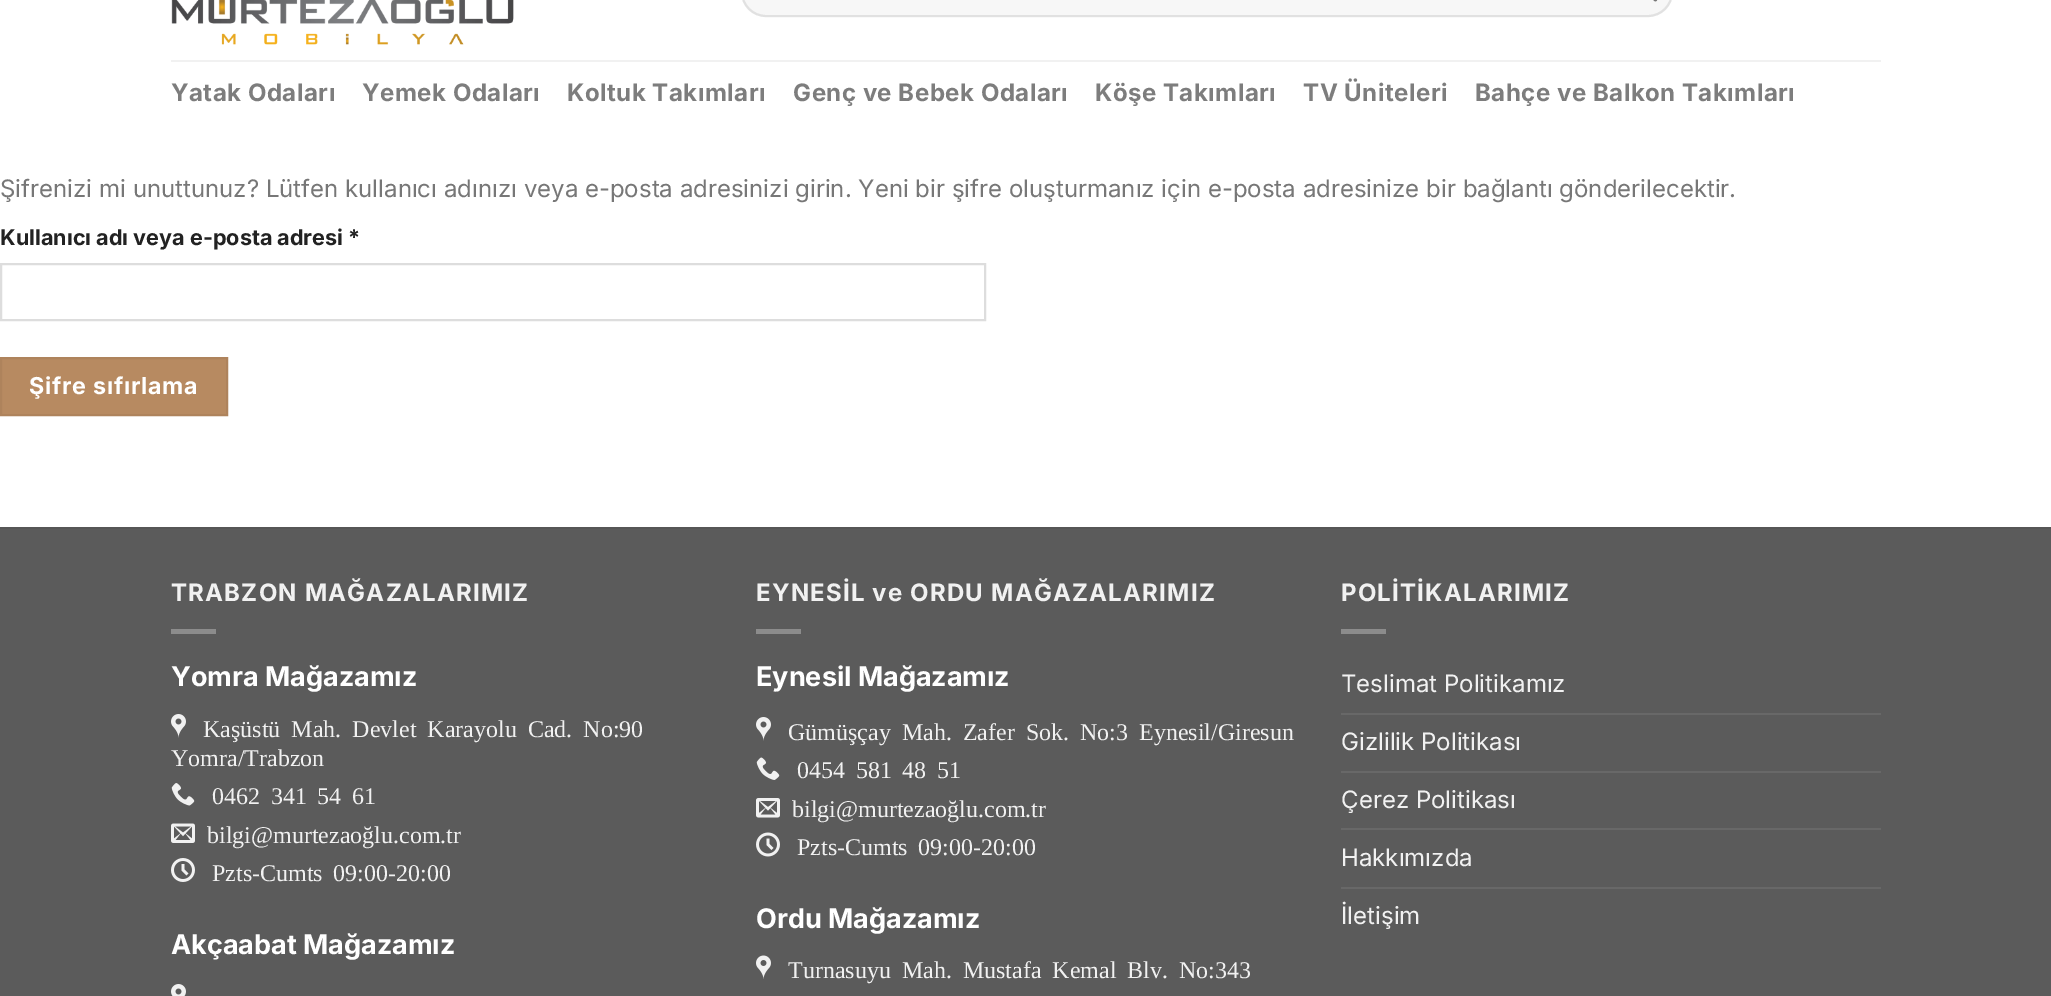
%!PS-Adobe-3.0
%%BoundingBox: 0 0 2051 996
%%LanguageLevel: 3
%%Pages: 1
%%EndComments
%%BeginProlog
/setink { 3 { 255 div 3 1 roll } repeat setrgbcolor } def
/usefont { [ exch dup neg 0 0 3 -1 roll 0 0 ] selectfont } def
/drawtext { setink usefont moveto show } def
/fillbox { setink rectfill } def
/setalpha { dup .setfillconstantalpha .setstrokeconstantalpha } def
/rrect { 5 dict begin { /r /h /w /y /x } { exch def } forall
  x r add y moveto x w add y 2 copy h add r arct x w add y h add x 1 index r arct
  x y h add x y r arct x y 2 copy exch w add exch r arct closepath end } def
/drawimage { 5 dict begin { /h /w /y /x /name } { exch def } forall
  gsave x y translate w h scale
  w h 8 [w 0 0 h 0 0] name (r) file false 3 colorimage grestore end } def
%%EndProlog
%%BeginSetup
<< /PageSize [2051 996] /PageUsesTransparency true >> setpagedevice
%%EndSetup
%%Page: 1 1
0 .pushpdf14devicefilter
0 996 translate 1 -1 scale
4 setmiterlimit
0 0 2051 996 255 255 255 fillbox
247 247 247 setink
741 -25 932 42 25 rrect fill
0.09 setalpha
0 0 0 setink
2 setlinewidth
742 -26 930 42 24 rrect stroke
1 setalpha
(assets/img1.rgb) 1653 0 5 2 drawimage
(assets/img2.rgb) 171 0 343 45 drawimage
171 60 1710 2 241 241 241 fillbox
/Inter-Bold 24 usefont
125 125 125 setink
171 101 moveto 0.5 0 (Yatak Odaları) ashow
362 101 moveto 0.5 0 (Yemek Odaları) ashow
567 101 moveto 0.5 0 (Koltuk Takımları) ashow
793 101 moveto 0.5 0 (Genç ve Bebek Odaları) ashow
1095 101 moveto 0.5 0 (Köşe Takımları) ashow
1303 101 moveto 0.5 0 (TV Üniteleri) ashow
1475 101 moveto 0.5 0 (Bahçe ve Balkon Takımları) ashow
(Şifrenizi mi unuttunuz? Lütfen kullanıcı adınızı veya e-posta adresinizi girin. Yeni bir şifre oluşturmanız için e-posta adresinize bir bağlantı gönderilecektir.) 0 197 /Inter-Regular 24 119 119 119 drawtext
(Kullanıcı adı veya e-posta adresi *) 0 245 /Inter-Bold 21.6 34 34 34 drawtext
221 221 221 setink
1 264 984 56 rectstroke
183 138 97 setink
1 358 moveto 227 358 lineto 227 415 lineto 1 415 lineto closepath gsave fill grestore
174 131 92 setink
stroke
/Inter-Bold 23.25 usefont
255 255 255 setink
29 394 moveto 0.75 0 (Şifre sıfırlama) ashow
0 529 2051 467 91 91 91 fillbox
0 527 2051 2 86 86 86 fillbox
/Inter-Bold 24 usefont
241 241 241 setink
171 601 moveto 1.2 0 (TRABZON MAĞAZALARIMIZ) ashow
171 629 45 5 140 140 140 fillbox
(Yomra Mağazamız) 171 686 /Inter-Bold 27 255 255 255 drawtext
(assets/img3.rgb) 171 714 15 24 drawimage
/LiberationSerif-Regular 24 usefont
241 241 241 setink
203 737 moveto 5 0 32 (Kaşüstü Mah. Devlet Karayolu Cad. No:90) widthshow
(Yomra/Trabzon) 171 766 /LiberationSerif-Regular 24 241 241 241 drawtext
(assets/img4.rgb) 171 783 24 23 drawimage
212 804 moveto 4.5 0 32 (0462 341 54 61) widthshow
(assets/img5.rgb) 171 823 24 20 drawimage
(bilgi@murtezaoğlu.com.tr) 207 843 /LiberationSerif-Regular 24 241 241 241 drawtext
(assets/img6.rgb) 171 858 24 24 drawimage
212 881 moveto 4.5 0 32 (Pzts-Cumts 09:00-20:00) widthshow
(Akçaabat Mağazamız) 171 954 /Inter-Bold 27 255 255 255 drawtext
(assets/img7.rgb) 171 984 15 12 drawimage
/Inter-Bold 24 usefont
241 241 241 setink
756 601 moveto 1.2 0 (EYNESİL ve ORDU MAĞAZALARIMIZ) ashow
756 629 45 5 140 140 140 fillbox
(Eynesil Mağazamız) 756 686 /Inter-Bold 27 255 255 255 drawtext
(assets/img3.rgb) 756 717 15 24 drawimage
/LiberationSerif-Regular 24 usefont
241 241 241 setink
788 740 moveto 5 0 32 (Gümüşçay Mah. Zafer Sok. No:3 Eynesil/Giresun) widthshow
(assets/img8.rgb) 756 757 24 23 drawimage
797 778 moveto 4.5 0 32 (0454 581 48 51) widthshow
(assets/img9.rgb) 756 798 24 20 drawimage
(bilgi@murtezaoğlu.com.tr) 792 817 /LiberationSerif-Regular 24 241 241 241 drawtext
(assets/img10.rgb) 756 832 24 25 drawimage
797 855 moveto 4.5 0 32 (Pzts-Cumts 09:00-20:00) widthshow
(Ordu Mağazamız) 756 928 /Inter-Bold 27 255 255 255 drawtext
(assets/img11.rgb) 756 955 15 24 drawimage
/LiberationSerif-Regular 24 usefont
241 241 241 setink
788 978 moveto 5 0 32 (Turnasuyu Mah. Mustafa Kemal Blv. No:343) widthshow
/Inter-Bold 24 usefont
1341 601 moveto 1.2 0 (POLİTİKALARIMIZ) ashow
1341 629 45 5 140 140 140 fillbox
(Teslimat Politikamız) 1341 692 /Inter-Regular 24 241 241 241 drawtext
1341 713 540 2 104 104 104 fillbox
(Gizlilik Politikası) 1341 750 /Inter-Regular 24 241 241 241 drawtext
1341 771 540 2 104 104 104 fillbox
(Çerez Politikası) 1341 808 /Inter-Regular 24 241 241 241 drawtext
1341 828 540 2 104 104 104 fillbox
(Hakkımızda) 1341 866 /Inter-Regular 24 241 241 241 drawtext
1341 887 540 2 104 104 104 fillbox
(İletişim) 1341 924 /Inter-Regular 24 241 241 241 drawtext
.poppdf14devicefilter showpage
%%EOF
